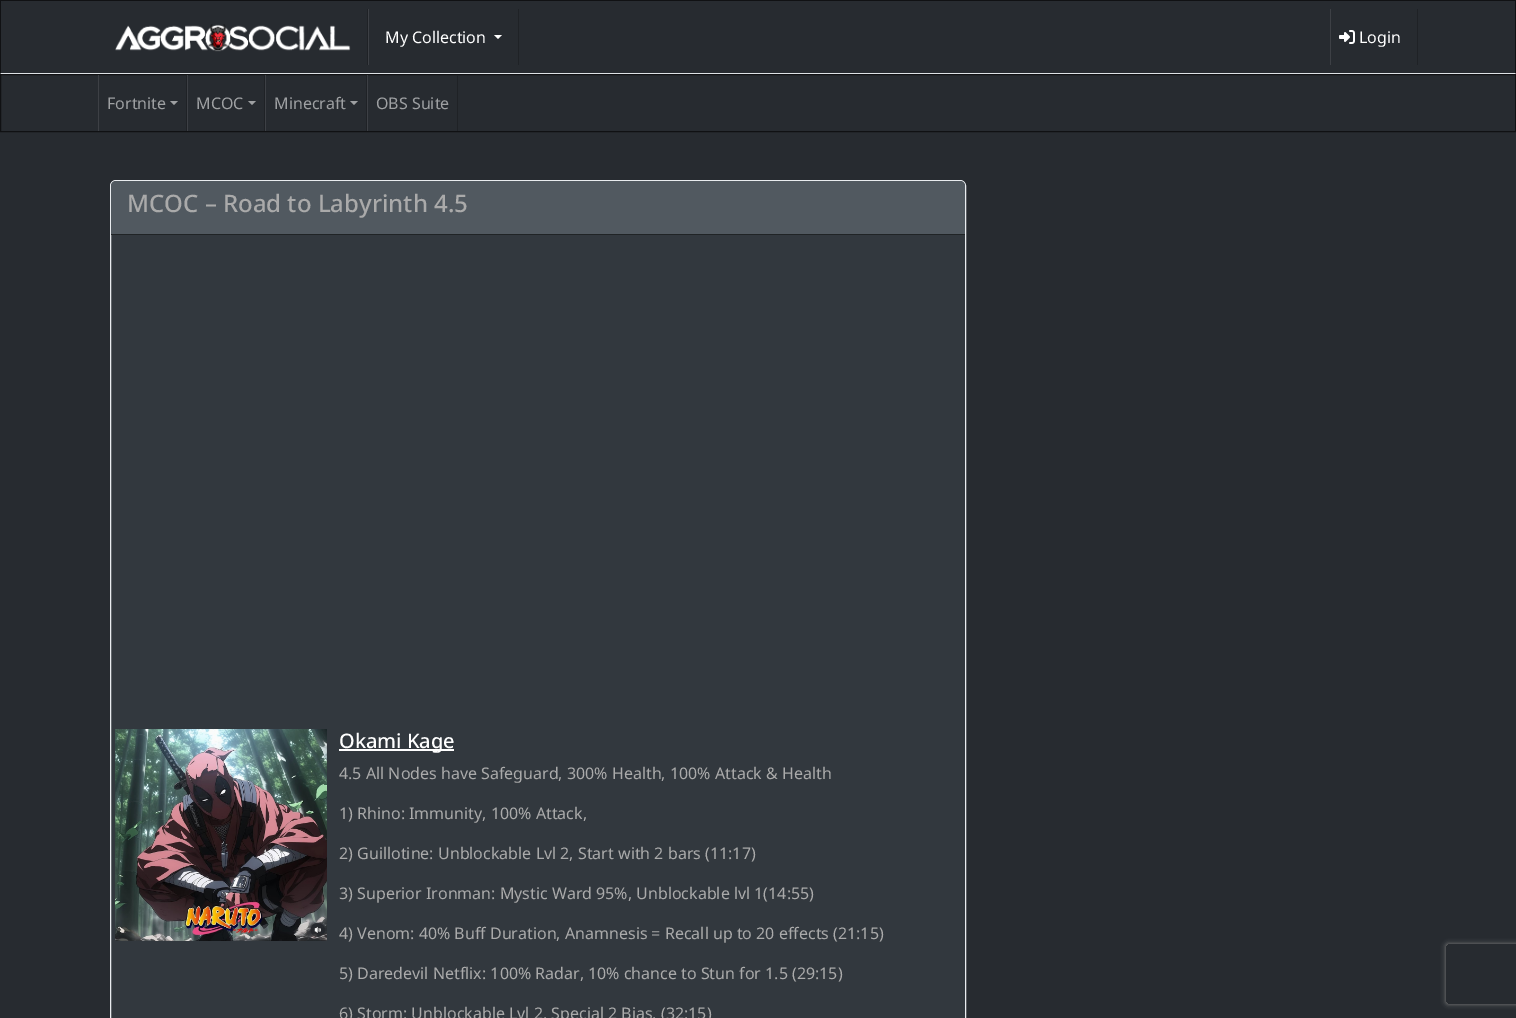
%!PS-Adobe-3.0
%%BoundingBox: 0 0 1516 1018
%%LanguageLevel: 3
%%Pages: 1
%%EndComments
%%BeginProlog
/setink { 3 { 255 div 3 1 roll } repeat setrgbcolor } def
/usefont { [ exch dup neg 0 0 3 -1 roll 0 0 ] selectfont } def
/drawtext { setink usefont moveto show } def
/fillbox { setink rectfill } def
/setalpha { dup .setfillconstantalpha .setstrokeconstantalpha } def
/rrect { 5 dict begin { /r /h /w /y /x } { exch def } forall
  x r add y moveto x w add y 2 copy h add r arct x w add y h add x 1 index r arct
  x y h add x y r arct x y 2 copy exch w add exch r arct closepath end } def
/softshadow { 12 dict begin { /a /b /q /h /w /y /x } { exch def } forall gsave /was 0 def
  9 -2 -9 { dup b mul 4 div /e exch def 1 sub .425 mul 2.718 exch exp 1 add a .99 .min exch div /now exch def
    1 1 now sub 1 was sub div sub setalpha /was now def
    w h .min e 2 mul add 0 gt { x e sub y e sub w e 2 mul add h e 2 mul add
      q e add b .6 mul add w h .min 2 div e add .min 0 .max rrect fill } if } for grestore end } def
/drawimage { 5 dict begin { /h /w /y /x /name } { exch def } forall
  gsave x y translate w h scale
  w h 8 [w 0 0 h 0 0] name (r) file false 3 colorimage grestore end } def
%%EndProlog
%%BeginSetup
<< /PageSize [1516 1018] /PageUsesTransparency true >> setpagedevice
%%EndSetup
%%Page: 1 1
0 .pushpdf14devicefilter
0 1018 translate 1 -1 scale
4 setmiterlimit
0 0 1516 1018 39 43 48 fillbox
16 17 19 setink
0 0 moveto 1516 0 lineto 1515 1 lineto 1 1 lineto closepath fill
0.6 setalpha
0 0 0 setink
1516 0 moveto 1516 74 lineto 1515 73 lineto 1515 1 lineto closepath fill
1 setalpha
222 226 230 setink
1516 74 moveto 0 74 lineto 1 73 lineto 1515 73 lineto closepath fill
0.6 setalpha
0 0 0 setink
0 74 moveto 0 0 lineto 1 1 lineto 1 73 lineto closepath fill
1 setalpha
367 9 1 56 31 34 38 fillbox
(assets/img1.rgb) 115 24 236 28 drawimage
518 9 1 56 31 34 38 fillbox
368 9 1 56 61 64 69 fillbox
(My Collection) 385 43 /NotoSans-Regular 16 255 255 255 drawtext
494 35 moveto 502 35 lineto 498 39 lineto closepath fill
1417 9 1 56 31 34 38 fillbox
1330 9 1 56 61 64 69 fillbox
(assets/img2.rgb) 1339 30 16 14 drawimage
(Login) 1359 43 /NotoSans-Regular 16 255 255 255 drawtext
16 17 19 setink
0.5 74.5 1515 57 rectstroke
186 75 1 56 31 34 38 fillbox
98 75 1 56 61 64 69 fillbox
(Fortnite) 107 109 /NotoSans-Regular 16 158 160 162 drawtext
170 101 moveto 178 101 lineto 174 105 lineto closepath fill
264 75 1 56 31 34 38 fillbox
187 75 1 56 61 64 69 fillbox
(MCOC) 196 109 /NotoSans-Regular 16 158 160 162 drawtext
248 101 moveto 256 101 lineto 252 105 lineto closepath fill
366 75 1 56 31 34 38 fillbox
265 75 1 56 61 64 69 fillbox
(Minecraft) 274 109 /NotoSans-Regular 16 158 160 162 drawtext
350 101 moveto 358 101 lineto 354 105 lineto closepath fill
457 75 1 56 31 34 38 fillbox
367 75 1 56 61 64 69 fillbox
(OBS Suite) 376 109 /NotoSans-Regular 16 158 160 162 drawtext
50 56 62 setink
110.5 180.5 855 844 5.5 rrect gsave fill grestore
233 236 239 setink
stroke
81 89 96 setink
116 181 moveto 960 181 lineto 963 181 965 183 965 186 curveto 965 235 lineto 111 235 lineto 111 186 lineto 111 183 113 181 116 181 curveto closepath fill
111 234 854 1 32 36 38 fillbox
(MCOC – Road to Labyrinth 4.5) 127 212 /NotoSans-Medium 24 170 170 170 drawtext
(assets/img3.rgb) 115 729 212 212 drawimage
339 749 115 2 255 255 255 fillbox
(Okami Kage) 339 748 /NotoSans-Medium 20 255 255 255 drawtext
(4.5 All Nodes have Safeguard, 300% Health, 100% Attack & Health) 339 779 /NotoSans-Regular 16 170 170 170 drawtext
(1\) Rhino: Immunity, 100% Attack,) 339 819 /NotoSans-Regular 16 170 170 170 drawtext
(2\) Guillotine: Unblockable Lvl 2, Start with 2 bars \(11:17\)) 339 859 /NotoSans-Regular 16 170 170 170 drawtext
(3\) Superior Ironman: Mystic Ward 95%, Unblockable lvl 1\(14:55\)) 339 899 /NotoSans-Regular 16 170 170 170 drawtext
(4\) Venom: 40% Buff Duration, Anamnesis = Recall up to 20 effects \(21:15\)) 339 939 /NotoSans-Regular 16 170 170 170 drawtext
(5\) Daredevil Netflix: 100% Radar, 10% chance to Stun for 1.5 \(29:15\)) 339 979 /NotoSans-Regular 16 170 170 170 drawtext
(6\) Storm: Unblockable Lvl 2, Special 2 Bias. \(32:15\)) 339 1019 /NotoSans-Regular 16 170 170 170 drawtext
gsave
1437 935 moveto 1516 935 lineto 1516 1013 lineto 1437 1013 lineto closepath 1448 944 moveto 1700 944 lineto 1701 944 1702 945 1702 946 curveto 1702 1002 lineto 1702 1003 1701 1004 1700 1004 curveto 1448 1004 lineto 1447 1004 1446 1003 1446 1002 curveto 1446 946 lineto 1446 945 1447 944 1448 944 curveto closepath eoclip newpath
128 128 128 setink
1446 944 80 60 2 2.5 1 softshadow
grestore
.poppdf14devicefilter showpage
%%EOF
